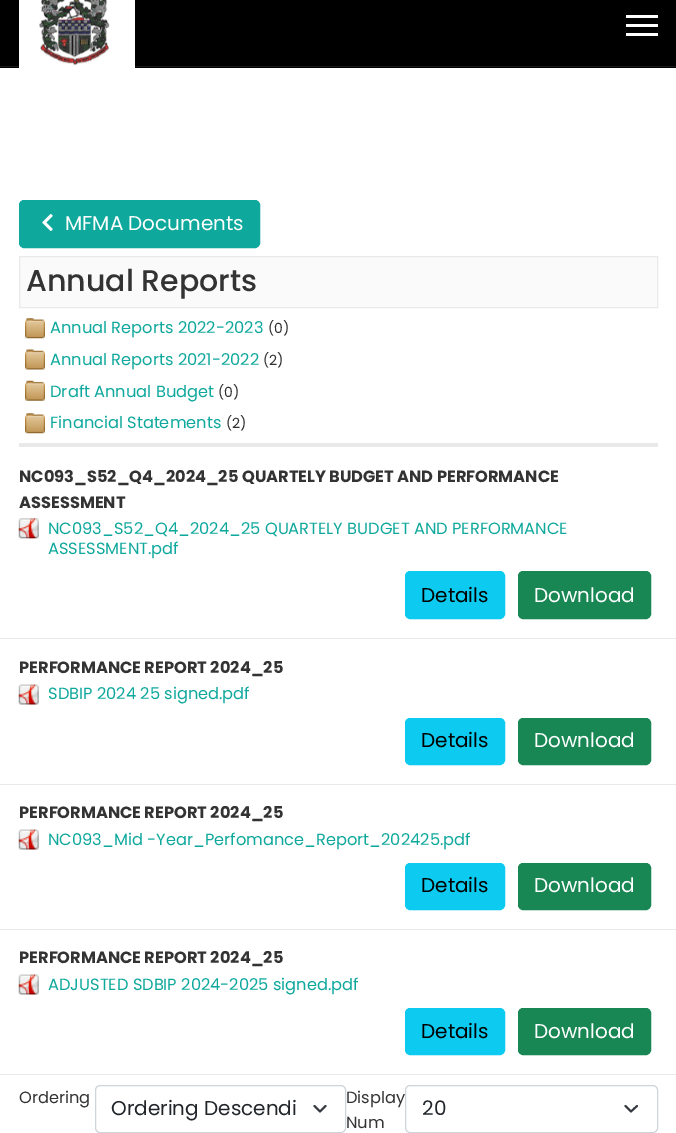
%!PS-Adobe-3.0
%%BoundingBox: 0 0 676 1133
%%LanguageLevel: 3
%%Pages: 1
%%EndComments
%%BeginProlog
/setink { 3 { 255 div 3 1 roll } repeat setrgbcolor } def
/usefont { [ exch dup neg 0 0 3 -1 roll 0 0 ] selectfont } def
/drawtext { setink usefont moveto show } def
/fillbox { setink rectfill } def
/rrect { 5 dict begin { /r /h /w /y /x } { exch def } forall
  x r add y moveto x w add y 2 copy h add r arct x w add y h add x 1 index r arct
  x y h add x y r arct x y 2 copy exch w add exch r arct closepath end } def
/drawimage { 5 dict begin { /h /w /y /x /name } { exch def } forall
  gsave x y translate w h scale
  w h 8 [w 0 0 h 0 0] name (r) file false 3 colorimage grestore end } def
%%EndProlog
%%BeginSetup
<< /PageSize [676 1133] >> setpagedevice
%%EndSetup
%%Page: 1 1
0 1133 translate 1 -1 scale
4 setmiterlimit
0 0 676 1133 255 255 255 fillbox
0 0 676 68 0 0 0 fillbox
0 66 676 1 26 26 26 fillbox
(assets/img1.rgb) 19 0 116 68 drawimage
626 15 32 3 255 255 255 fillbox
626 24 32 3 255 255 255 fillbox
626 33 32 3 255 255 255 fillbox
15 168 157 setink
19.5 200.5 240 47 4.5 rrect gsave fill grestore
stroke
(assets/img2.rgb) 42 214 11 17 drawimage
(MFMA Documents) 65 230 /Poppins-Regular 20 255 255 255 drawtext
250 250 250 setink
19.5 256.5 moveto 657.5 256.5 lineto 657.5 307.5 lineto 19.5 307.5 lineto closepath gsave fill grestore
233 233 233 setink
stroke
(Annual Reports) 26 291 /Poppins-Medium 30 51 51 51 drawtext
(assets/img3.rgb) 25 318 20 21 drawimage
(Annual Reports 2022-2023) 50 333 /Poppins-Regular 16.25 15 168 157 drawtext
(\(0\)) 268 333 /Poppins-Regular 14 51 51 51 drawtext
(assets/img4.rgb) 25 349 20 21 drawimage
(Annual Reports 2021-2022) 50 365 /Poppins-Regular 16.25 15 168 157 drawtext
(\(2\)) 263 365 /Poppins-Regular 14 51 51 51 drawtext
(assets/img5.rgb) 25 380 20 21 drawimage
(Draft Annual Budget) 50 397 /Poppins-Regular 16.25 15 168 157 drawtext
(\(0\)) 218 397 /Poppins-Regular 14 51 51 51 drawtext
(assets/img3.rgb) 25 413 20 21 drawimage
(Financial Statements) 50 428 /Poppins-Regular 16.25 15 168 157 drawtext
(\(2\)) 226 428 /Poppins-Regular 14 51 51 51 drawtext
19 443 639 4 233 233 233 fillbox
(NC093_S52_Q4_2024_25 QUARTELY BUDGET AND PERFORMANCE) 19 482 /Poppins-Bold 16.25 51 51 51 drawtext
(ASSESSMENT) 19 508 /Poppins-Bold 16.25 51 51 51 drawtext
(assets/img6.rgb) 18 518 21 21 drawimage
(NC093_S52_Q4_2024_25 QUARTELY BUDGET AND PERFORMANCE) 48 534 /Poppins-Regular 16.25 15 168 157 drawtext
(ASSESSMENT.pdf) 48 554 /Poppins-Regular 16.25 15 168 157 drawtext
13 202 240 setink
405.5 571.5 99 47 4.5 rrect gsave fill grestore
stroke
(Details) 421 602 /Poppins-Regular 20 0 0 0 drawtext
25 135 84 setink
518.5 571.5 132 47 4.5 rrect gsave fill grestore
stroke
(Download) 534 602 /Poppins-Regular 20 255 255 255 drawtext
0 638 676 1 233 233 233 fillbox
(PERFORMANCE REPORT 2024_25) 19 673 /Poppins-Bold 16.25 51 51 51 drawtext
(assets/img7.rgb) 18 684 21 21 drawimage
(SDBIP 2024 25 signed.pdf) 48 699 /Poppins-Regular 16.25 15 168 157 drawtext
13 202 240 setink
405.5 718.5 99 46 4.5 rrect gsave fill grestore
stroke
(Details) 421 747 /Poppins-Regular 20 0 0 0 drawtext
25 135 84 setink
518.5 718.5 132 46 4.5 rrect gsave fill grestore
stroke
(Download) 534 747 /Poppins-Regular 20 255 255 255 drawtext
0 784 676 1 233 233 233 fillbox
(PERFORMANCE REPORT 2024_25) 19 818 /Poppins-Bold 16.25 51 51 51 drawtext
(assets/img7.rgb) 18 829 21 21 drawimage
(NC093_Mid -Year_Perfomance_Report_202425.pdf) 48 845 /Poppins-Regular 16.25 15 168 157 drawtext
13 202 240 setink
405.5 863.5 99 46 4.5 rrect gsave fill grestore
stroke
(Details) 421 892 /Poppins-Regular 20 0 0 0 drawtext
25 135 84 setink
518.5 863.5 132 46 4.5 rrect gsave fill grestore
stroke
(Download) 534 892 /Poppins-Regular 20 255 255 255 drawtext
0 929 676 1 233 233 233 fillbox
(PERFORMANCE REPORT 2024_25) 19 963 /Poppins-Bold 16.25 51 51 51 drawtext
(assets/img8.rgb) 18 974 21 21 drawimage
(ADJUSTED SDBIP 2024-2025 signed.pdf) 48 990 /Poppins-Regular 16.25 15 168 157 drawtext
13 202 240 setink
405.5 1008.5 99 46 4.5 rrect gsave fill grestore
stroke
(Details) 421 1038 /Poppins-Regular 20 0 0 0 drawtext
25 135 84 setink
518.5 1008.5 132 46 4.5 rrect gsave fill grestore
stroke
(Download) 534 1038 /Poppins-Regular 20 255 255 255 drawtext
0 1074 676 1 233 233 233 fillbox
(Ordering) 19 1103 /Poppins-Regular 16.25 51 51 51 drawtext
52 58 64 setink
1.9 setlinewidth
1 setlinecap
1 setlinejoin
314.5 1106 moveto 320 1111.5 lineto 325.5 1106 lineto stroke
206 212 218 setink
1 setlinewidth
0 setlinecap
0 setlinejoin
95.5 1085.5 250 47 4.5 rrect stroke
(Ordering Descendi) 111 1115 /Poppins-Regular 20 33 37 41 drawtext
(Display) 346 1103 /Poppins-Regular 16.25 51 51 51 drawtext
255 255 255 setink
405 1085 253 48 5 rrect fill
52 58 64 setink
1.9 setlinewidth
1 setlinecap
1 setlinejoin
625.5 1106 moveto 631 1111.5 lineto 637 1106 lineto stroke
206 212 218 setink
1 setlinewidth
0 setlinecap
0 setlinejoin
405.5 1085.5 252 47 4.5 rrect stroke
(20) 422 1115 /Poppins-Regular 20 33 37 41 drawtext
(Num) 346 1128 /Poppins-Regular 16.25 51 51 51 drawtext
showpage
%%EOF
